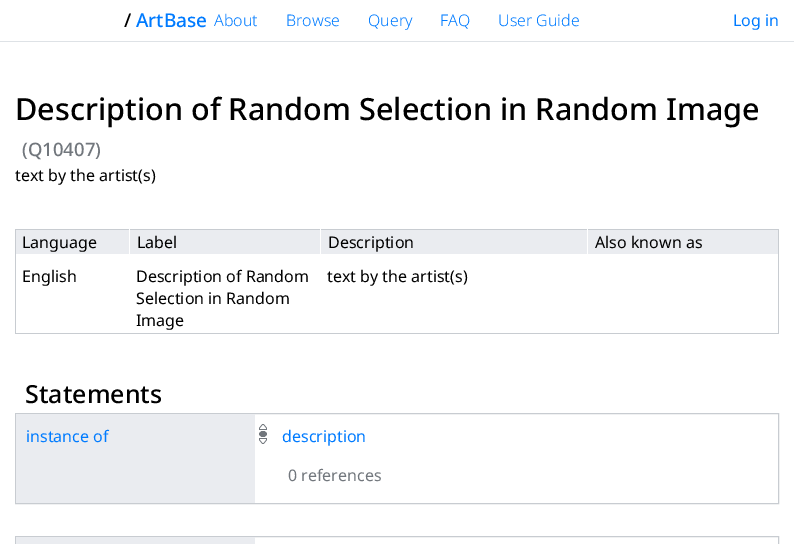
%!PS-Adobe-3.0
%%BoundingBox: 0 0 794 544
%%LanguageLevel: 3
%%Pages: 1
%%EndComments
%%BeginProlog
/setink { 3 { 255 div 3 1 roll } repeat setrgbcolor } def
/usefont { [ exch dup neg 0 0 3 -1 roll 0 0 ] selectfont } def
/drawtext { setink usefont moveto show } def
/fillbox { setink rectfill } def
/drawimage { 5 dict begin { /h /w /y /x /name } { exch def } forall
  gsave x y translate w h scale
  w h 8 [w 0 0 h 0 0] name (r) file false 3 colorimage grestore end } def
%%EndProlog
%%BeginSetup
<< /PageSize [794 544] >> setpagedevice
%%EndSetup
%%Page: 1 1
0 544 translate 1 -1 scale
4 setmiterlimit
0 0 794 544 255 255 255 fillbox
0 41 794 1 222 226 230 fillbox
(/) 124 27 /NotoSans-Medium 19 0 0 0 drawtext
(ArtBase) 136 27 /NotoSans-Medium 19 0 123 255 drawtext
(About) 214 26 /NotoSans-Light 16 0 123 255 drawtext
(Browse) 286 26 /NotoSans-Light 16 0 123 255 drawtext
(Query) 368 26 /NotoSans-Light 16 0 123 255 drawtext
(FAQ) 440 26 /NotoSans-Light 16 0 123 255 drawtext
(User Guide) 498 26 /NotoSans-Light 16 0 123 255 drawtext
(Log in) 733 26 /NotoSans-Regular 16 0 123 255 drawtext
(Description of Random Selection in Random Image) 15 120 /NotoSans-Medium 30.6 0 0 0 drawtext
(\(Q10407\)) 22 156 /NotoSans-Medium 18.5 114 119 125 drawtext
(text by the artist\(s\)) 15 181 /NotoSans-Regular 16 0 0 0 drawtext
15 229 764 1 200 204 209 fillbox
778 229 1 105 200 204 209 fillbox
15 333 764 1 200 204 209 fillbox
15 229 1 105 200 204 209 fillbox
16 230 113 24 234 236 240 fillbox
129 229 1 1 255 255 255 fillbox
(Language) 22 248 /NotoSans-Regular 16 0 0 0 drawtext
130 230 190 24 234 236 240 fillbox
320 229 1 1 255 255 255 fillbox
(Label) 137 248 /NotoSans-Regular 16 0 0 0 drawtext
321 230 266 24 234 236 240 fillbox
587 229 1 1 255 255 255 fillbox
(Description) 328 248 /NotoSans-Regular 16 0 0 0 drawtext
588 230 190 24 234 236 240 fillbox
(Also known as) 595 248 /NotoSans-Regular 16 0 0 0 drawtext
(English) 22 282 /NotoSans-Regular 16 0 0 0 drawtext
(Description of Random) 136 282 /NotoSans-Regular 16 0 0 0 drawtext
(Selection in Random) 136 304 /NotoSans-Regular 16 0 0 0 drawtext
(Image) 136 326 /NotoSans-Regular 16 0 0 0 drawtext
(text by the artist\(s\)) 327 282 /NotoSans-Regular 16 0 0 0 drawtext
(Statements) 25 403 /NotoSans-Medium 25 0 0 0 drawtext
200 204 209 setink
15.5 413.5 763 90 rectstroke
16 414 239 89 234 236 240 fillbox
(instance of) 26 442 /NotoSans-Regular 16 0 123 255 drawtext
(assets/img1.rgb) 259 424 8 20 drawimage
(description) 282 442 /NotoSans-Regular 16 0 123 255 drawtext
(0 references) 288 481 /NotoSans-Regular 16 114 119 125 drawtext
200 204 209 setink
15.5 536.5 763 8 rectstroke
15 537 240 7 234 236 240 fillbox
15 536 1 8 200 204 209 fillbox
showpage
%%EOF
